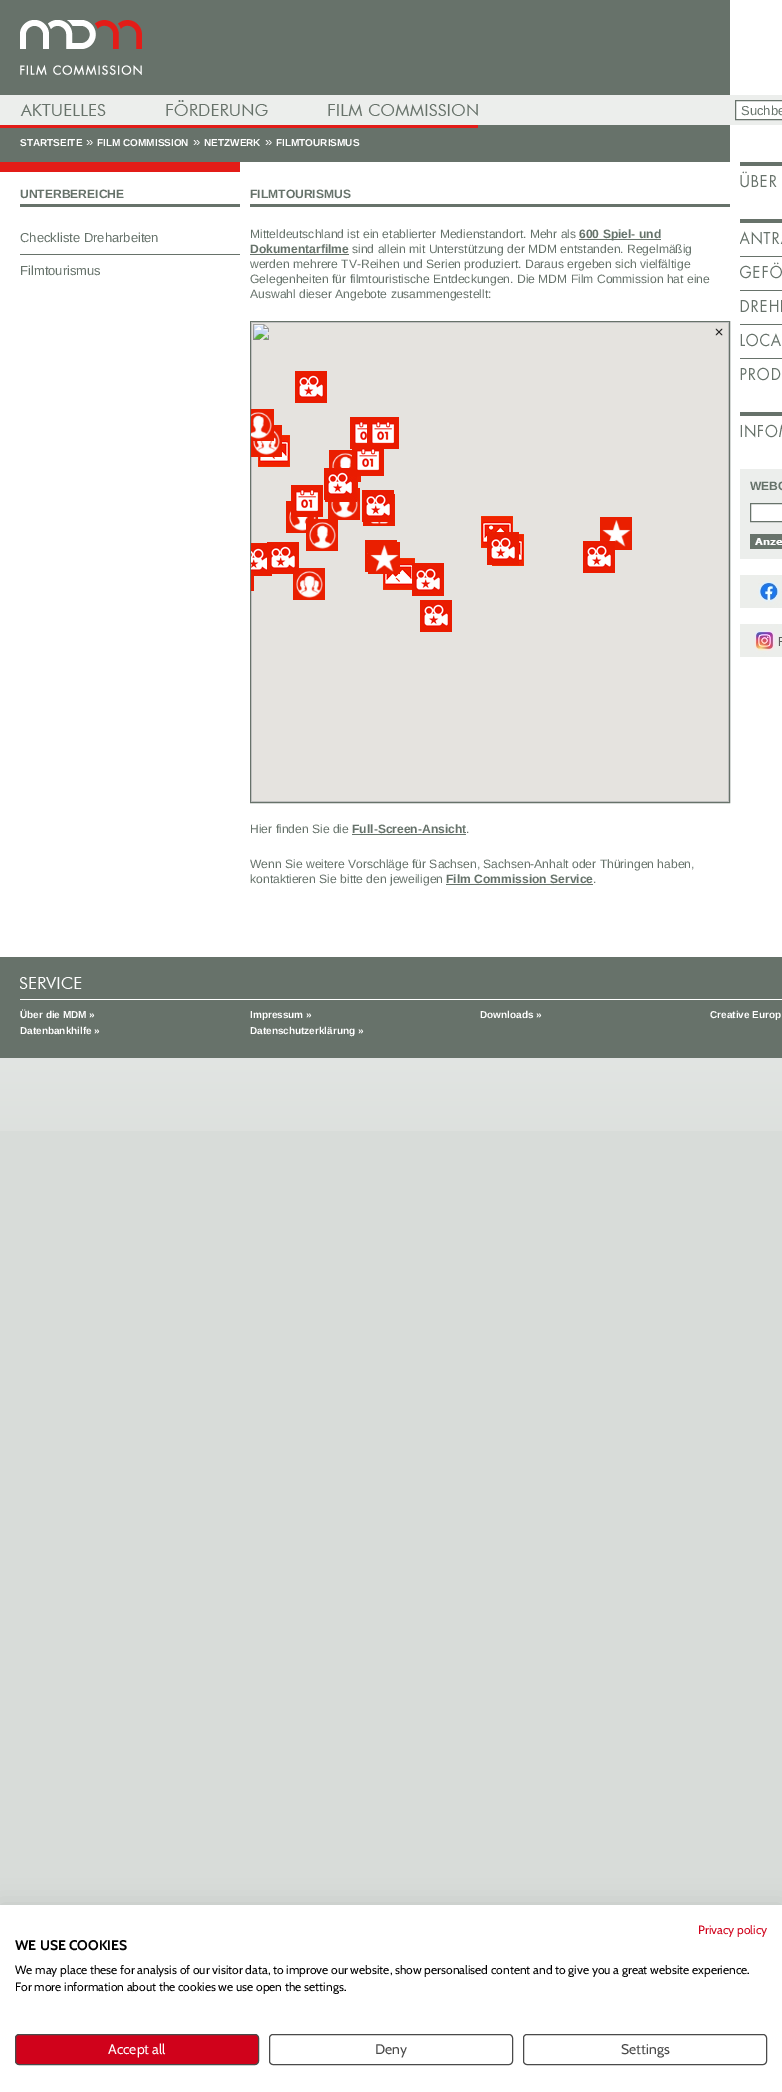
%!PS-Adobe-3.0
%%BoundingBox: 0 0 782 2092
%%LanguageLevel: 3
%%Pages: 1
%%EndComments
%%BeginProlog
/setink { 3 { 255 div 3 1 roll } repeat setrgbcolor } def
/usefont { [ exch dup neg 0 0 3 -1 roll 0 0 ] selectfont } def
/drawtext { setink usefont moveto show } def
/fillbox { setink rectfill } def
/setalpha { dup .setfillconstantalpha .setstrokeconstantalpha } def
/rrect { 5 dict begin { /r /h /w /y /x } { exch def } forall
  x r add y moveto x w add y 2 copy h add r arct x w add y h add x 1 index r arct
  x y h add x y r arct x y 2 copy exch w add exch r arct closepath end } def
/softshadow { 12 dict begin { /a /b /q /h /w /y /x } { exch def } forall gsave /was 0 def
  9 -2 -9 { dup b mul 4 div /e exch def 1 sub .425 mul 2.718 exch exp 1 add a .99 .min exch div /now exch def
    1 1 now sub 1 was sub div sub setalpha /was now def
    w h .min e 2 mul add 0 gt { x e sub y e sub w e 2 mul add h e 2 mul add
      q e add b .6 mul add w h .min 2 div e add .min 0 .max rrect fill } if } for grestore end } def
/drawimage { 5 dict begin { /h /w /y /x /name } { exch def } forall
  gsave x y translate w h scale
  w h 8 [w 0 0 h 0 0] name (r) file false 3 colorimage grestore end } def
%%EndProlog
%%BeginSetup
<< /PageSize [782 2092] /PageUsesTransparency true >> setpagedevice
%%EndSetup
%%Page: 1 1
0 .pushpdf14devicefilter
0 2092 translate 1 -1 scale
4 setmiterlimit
0 0 782 2092 216 220 217 fillbox
(assets/img1.rgb) 0 1058 782 73 drawimage
0 0 782 957 255 255 255 fillbox
(assets/img2.rgb) 0 0 730 95 drawimage
0 95 782 30 236 238 236 fillbox
(assets/img3.rgb) 20 104 86 12 drawimage
(assets/img4.rgb) 166 100 102 16 drawimage
(assets/img5.rgb) 328 104 150 12 drawimage
255 255 255 setink
735.5 100.5 moveto 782.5 100.5 lineto 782.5 119.5 lineto 735.5 119.5 lineto closepath gsave fill grestore
104 115 107 setink
stroke
(Suchbe) 741 115 /LiberationSans-Regular 13 102 114 106 drawtext
0 125 730 37 103 114 106 fillbox
0 125 478 3 227 28 24 fillbox
(STARTSEITE) 20 146 /LiberationSans-Bold 10 255 255 255 drawtext
(») 86 146 /LiberationSans-Regular 13 255 255 255 drawtext
(FILM COMMISSION) 97 146 /LiberationSans-Bold 10 255 255 255 drawtext
(») 193 146 /LiberationSans-Regular 13 255 255 255 drawtext
(NETZWERK) 204 146 /LiberationSans-Bold 10 255 255 255 drawtext
(») 265 146 /LiberationSans-Regular 13 255 255 255 drawtext
(FILMTOURISMUS) 276 146 /LiberationSans-Bold 10 255 255 255 drawtext
0 162 240 10 227 28 24 fillbox
20 204 220 3 103 114 106 fillbox
(UNTERBEREICHE) 20 198 /LiberationSans-Bold 12.1 102 114 106 drawtext
(Checkliste Dreharbeiten) 20 242 /LiberationSans-Regular 13 102 114 106 drawtext
20 254 220 1 103 114 106 fillbox
(Filmtourismus) 20 275 /LiberationSans-Regular 13 102 114 106 drawtext
250 204 480 3 103 114 106 fillbox
(FILMTOURISMUS) 250 198 /LiberationSans-Bold 12.1 102 114 106 drawtext
(Mitteldeutschland ist ein etablierter Medienstandort. Mehr als) 250 238 /LiberationSans-Regular 12.1 102 114 106 drawtext
579 239 82 1 102 114 106 fillbox
(600 Spiel- und) 579 238 /LiberationSans-Bold 12.1 102 114 106 drawtext
(Dokumentarfilme) 250 253 /LiberationSans-Bold 12.1 102 114 106 drawtext
250 254 99 1 102 114 106 fillbox
(sind allein mit Unterstützung der MDM entstanden. Regelmäßig) 352 253 /LiberationSans-Regular 12.1 102 114 106 drawtext
(werden mehrere TV-Reihen und Serien produziert. Daraus ergeben sich vielfältige) 250 268 /LiberationSans-Regular 12.1 102 114 106 drawtext
(Gelegenheiten für filmtouristische Entdeckungen. Die MDM Film Commission hat eine) 250 283 /LiberationSans-Regular 12.1 102 114 106 drawtext
(Auswahl dieser Angebote zusammengestellt:) 250 298 /LiberationSans-Regular 12.1 102 114 106 drawtext
103 114 106 setink
250.5 321.5 479 481 rectstroke
(assets/img6.rgb) 251 322 478 480 drawimage
(Hier finden Sie die) 250 833 /LiberationSans-Regular 12.1 102 114 106 drawtext
(Full-Screen-Ansicht) 352 833 /LiberationSans-Bold 12.1 102 114 106 drawtext
352 834 114 1 102 114 106 fillbox
(.) 466 833 /LiberationSans-Regular 12.1 102 114 106 drawtext
(Wenn Sie weitere Vorschläge für Sachsen, Sachsen-Anhalt oder Thüringen haben,) 250 868 /LiberationSans-Regular 12.1 102 114 106 drawtext
(kontaktieren Sie bitte den jeweiligen) 250 883 /LiberationSans-Regular 12.1 102 114 106 drawtext
(Film Commission Service) 446 883 /LiberationSans-Bold 12.1 102 114 106 drawtext
446 884 147 1 102 114 106 fillbox
(.) 593 883 /LiberationSans-Regular 12.1 102 114 106 drawtext
740 162 42 4 103 114 106 fillbox
(assets/img7.rgb) 740 171 37 17 drawimage
740 219 42 4 103 114 106 fillbox
(assets/img8.rgb) 740 231 42 14 drawimage
740 256 42 1 103 114 106 fillbox
(assets/img9.rgb) 740 262 42 17 drawimage
740 290 42 1 103 114 106 fillbox
(assets/img10.rgb) 740 300 42 12 drawimage
740 324 42 1 103 114 106 fillbox
(assets/img11.rgb) 740 333 41 14 drawimage
740 358 42 1 103 114 106 fillbox
(assets/img12.rgb) 740 367 41 14 drawimage
740 412 42 4 103 114 106 fillbox
(assets/img13.rgb) 740 424 42 14 drawimage
740 469 42 90 236 238 236 fillbox
(WEBC) 750 490 /LiberationSans-Bold 12.1 102 114 106 drawtext
255 255 255 setink
750.5 503.5 moveto 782.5 503.5 lineto 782.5 521.5 lineto 750.5 521.5 lineto closepath gsave fill grestore
104 115 107 setink
stroke
(assets/img14.rgb) 750 534 32 15 drawimage
(assets/img15.rgb) 740 575 42 33 drawimage
(assets/img16.rgb) 740 624 42 33 drawimage
0 957 782 101 103 114 106 fillbox
(assets/img17.rgb) 20 977 62 12 drawimage
20 999 762 1 255 255 255 fillbox
(Über die MDM ») 20 1018 /LiberationSans-Bold 10 255 255 255 drawtext
(Impressum ») 250 1018 /LiberationSans-Bold 10 255 255 255 drawtext
(Downloads ») 480 1018 /LiberationSans-Bold 10 255 255 255 drawtext
(Creative Europ) 710 1018 /LiberationSans-Bold 10 255 255 255 drawtext
(Datenbankhilfe ») 20 1034 /LiberationSans-Bold 10 255 255 255 drawtext
(Datenschutzerklärung ») 250 1034 /LiberationSans-Bold 10 255 255 255 drawtext
0 0 0 setink
0 1905 782 187 0 12 0.1 softshadow
0 1905 782 187 255 255 255 fillbox
(Privacy policy) 698 1934 /Cabin-Regular 12 208 2 27 drawtext
(WE USE COOKIES) 15 1950 /Cabin-Bold 14 0 0 0 drawtext
(We may place these for analysis of our visitor data, to improve our website, show personalised content and to give you a great website experience.) 15 1974 /Cabin-Regular 12 0 0 0 drawtext
(For more information about the cookies we use open the settings.) 15 1991 /Cabin-Regular 12 0 0 0 drawtext
208 2 27 setink
15.5 2034.5 243 30 3.5 rrect gsave fill grestore
74 74 74 setink
stroke
(Accept all) 108 2054 /Cabin-Regular 14 255 255 255 drawtext
74 74 74 setink
269.5 2034.5 243 30 3.5 rrect stroke
(Deny) 375 2054 /Cabin-Regular 14 74 74 74 drawtext
523.5 2034.5 243 30 3.5 rrect stroke
(Settings) 621 2054 /Cabin-Regular 14 74 74 74 drawtext
.poppdf14devicefilter showpage
%%EOF
